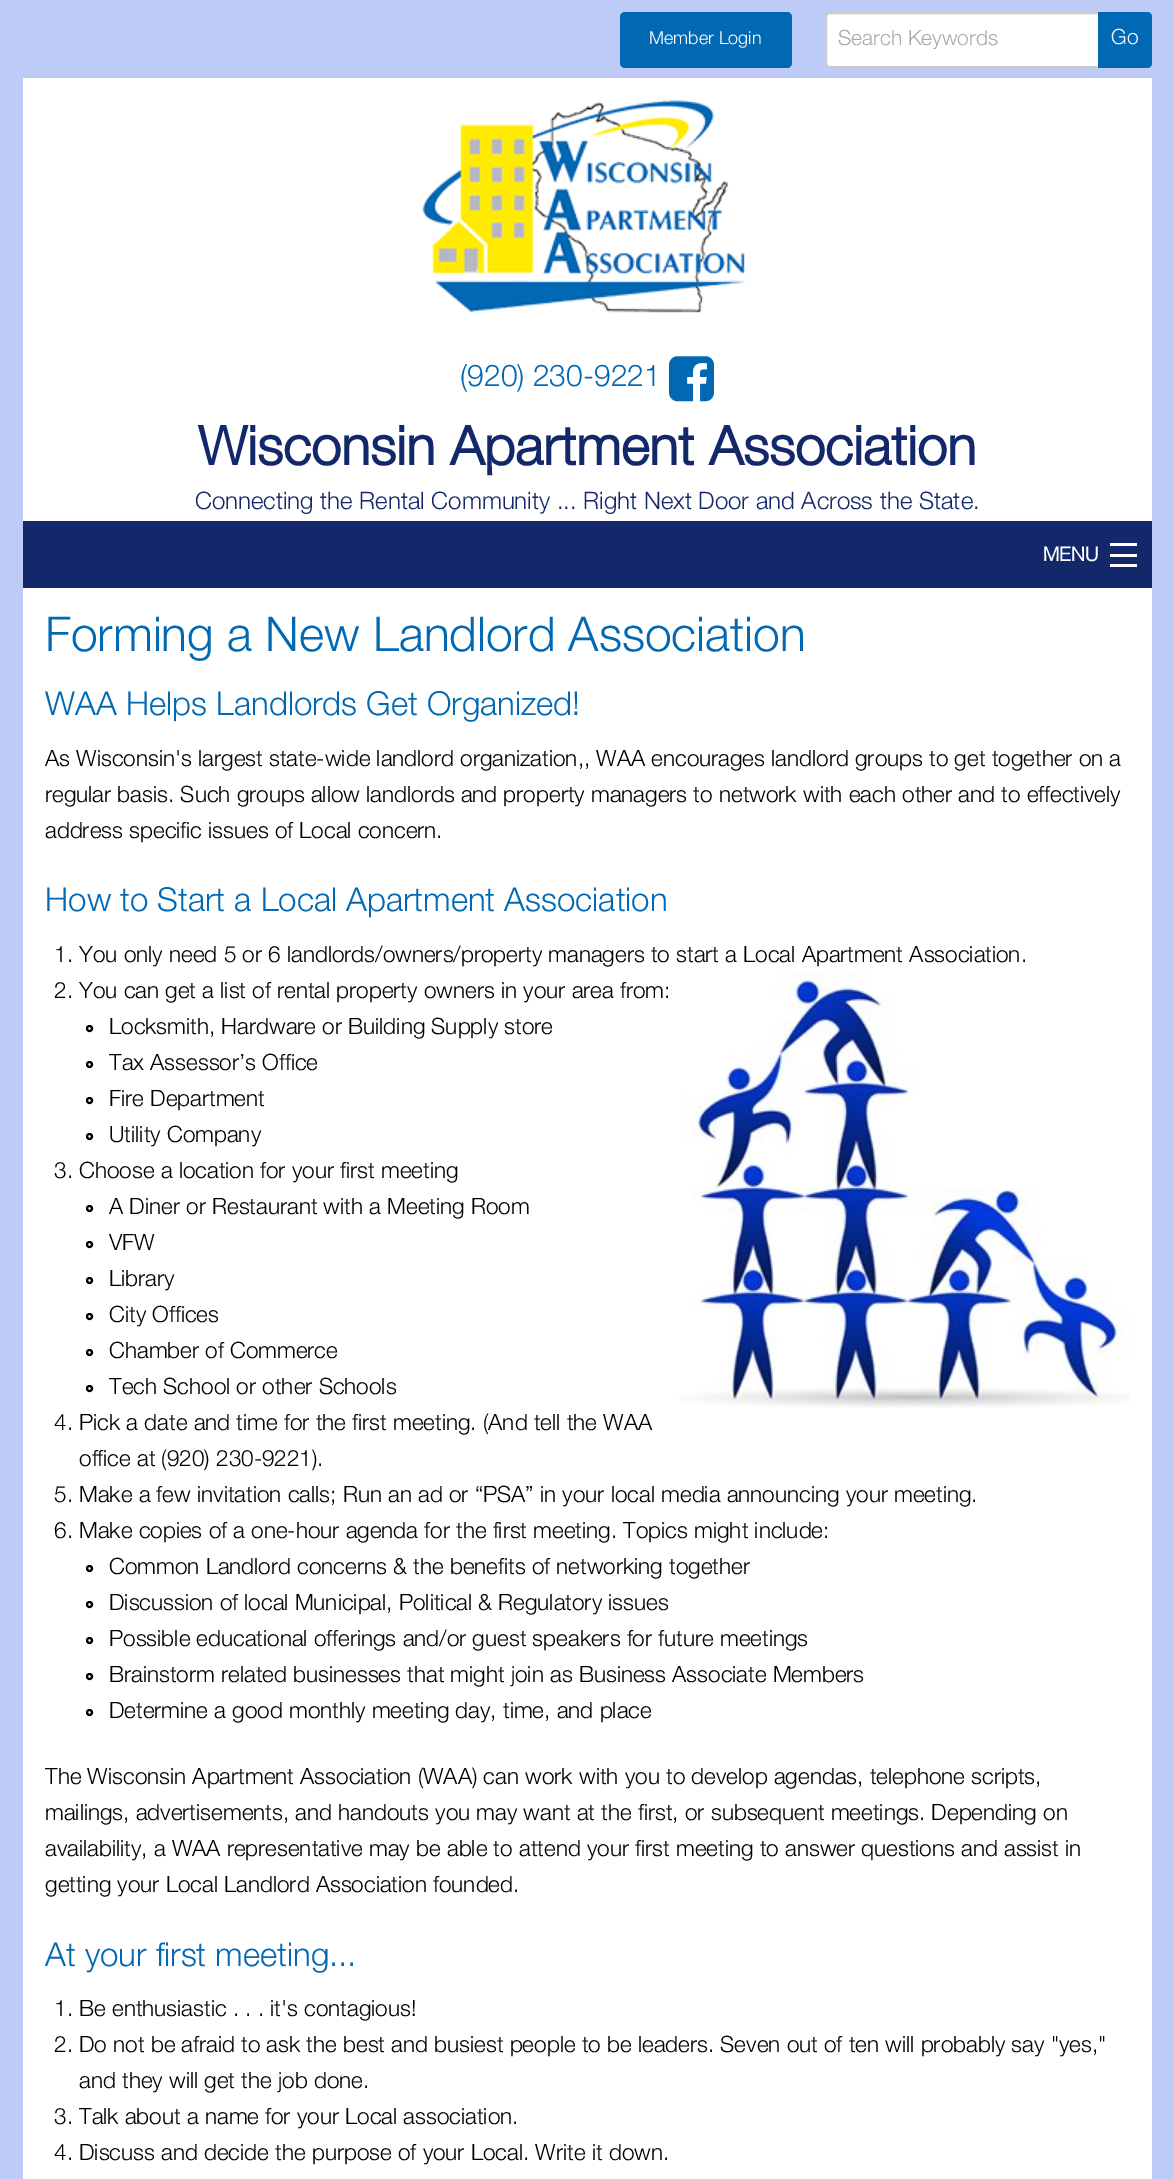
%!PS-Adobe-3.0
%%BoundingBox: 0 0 1174 2179
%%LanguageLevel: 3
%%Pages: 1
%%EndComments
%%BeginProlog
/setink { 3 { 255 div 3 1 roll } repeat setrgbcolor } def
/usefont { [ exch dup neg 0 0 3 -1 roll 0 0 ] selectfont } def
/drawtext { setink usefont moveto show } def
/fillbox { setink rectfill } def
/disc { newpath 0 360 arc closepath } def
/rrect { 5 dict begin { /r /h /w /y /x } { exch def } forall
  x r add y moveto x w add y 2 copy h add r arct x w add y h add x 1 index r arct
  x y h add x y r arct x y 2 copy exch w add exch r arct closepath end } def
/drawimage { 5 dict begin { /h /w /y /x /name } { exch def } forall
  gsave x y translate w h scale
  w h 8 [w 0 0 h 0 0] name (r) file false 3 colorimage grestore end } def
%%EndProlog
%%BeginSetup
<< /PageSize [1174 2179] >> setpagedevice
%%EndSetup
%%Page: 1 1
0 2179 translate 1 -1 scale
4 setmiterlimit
0 0 1174 2179 189 203 246 fillbox
1 104 179 setink
620 12 172 56 5 rrect fill
(Member Login) 649 44 /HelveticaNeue-Light 18 255 255 255 drawtext
826 13 298 54 4 rrect gsave fill grestore
204 204 204 setink
2 setlinewidth
stroke
(Search Keywords) 838 45 /HelveticaNeue-Light 21 170 170 170 drawtext
1 104 179 setink
1098 12 moveto 1147 12 lineto 1150 12 1152 14 1152 17 curveto 1152 63 lineto 1152 66 1150 68 1147 68 curveto 1098 68 lineto closepath fill
(Go) 1111 44 /HelveticaNeue-Light 21 255 255 255 drawtext
23 78 1129 443 255 255 255 fillbox
(assets/img1.rgb) 422 100 323 213 drawimage
(\(920\) 230-9221) 460 386 /HelveticaNeue-Light 30 1 104 179 drawtext
(assets/img2.rgb) 669 356 45 46 drawimage
(Wisconsin Apartment Association) 198 465 /HelveticaNeue-Bold 54 19 40 107 drawtext
(Connecting the Rental Community ... Right Next Door and Across the State.) 195 509 /HelveticaNeue-Light 24 19 40 107 drawtext
23 521 1129 67 19 40 107 fillbox
(MENU) 1043 561 /HelveticaNeue-Bold 19.5 255 255 255 drawtext
1110 564 27 3 255 255 255 fillbox
1110 554 27 3 255 255 255 fillbox
1110 543 27 3 255 255 255 fillbox
23 588 1129 1591 255 255 255 fillbox
(Forming a New Landlord Association) 45 651 /HelveticaNeue-Light 48 1 104 179 drawtext
(WAA Helps Landlords Get Organized!) 45 715 /HelveticaNeue-Light 33 1 104 179 drawtext
(As Wisconsin's largest state-wide landlord organization,, WAA encourages landlord groups to get together on a) 45 766 /HelveticaNeue-Light 22.5 0 0 0 drawtext
(regular basis. Such groups allow landlords and property managers to network with each other and to effectively) 45 802 /HelveticaNeue-Light 22.5 0 0 0 drawtext
(address specific issues of Local concern.) 45 838 /HelveticaNeue-Light 22.5 0 0 0 drawtext
(How to Start a Local Apartment Association) 45 911 /HelveticaNeue-Light 33 1 104 179 drawtext
(1. You only need 5 or 6 landlords/owners/property managers to start a Local Apartment Association.) 54 962 /HelveticaNeue-Light 22.5 0 0 0 drawtext
(assets/img3.rgb) 679 973 451 435 drawimage
(2. You can get a list of rental property owners in your area from:) 54 998 /HelveticaNeue-Light 22.5 0 0 0 drawtext
89.5 1028.5 2.5 disc stroke
(Locksmith, Hardware or Building Supply store) 109 1034 /HelveticaNeue-Light 22.5 0 0 0 drawtext
89.5 1064.5 2.5 disc stroke
(Tax Assessor’s Office) 109 1070 /HelveticaNeue-Light 22.5 0 0 0 drawtext
89.5 1100.5 2.5 disc stroke
(Fire Department) 109 1106 /HelveticaNeue-Light 22.5 0 0 0 drawtext
89.5 1136.5 2.5 disc stroke
(Utility Company) 109 1142 /HelveticaNeue-Light 22.5 0 0 0 drawtext
(3. Choose a location for your first meeting) 54 1178 /HelveticaNeue-Light 22.5 0 0 0 drawtext
89.5 1208.5 2.5 disc stroke
(A Diner or Restaurant with a Meeting Room) 109 1214 /HelveticaNeue-Light 22.5 0 0 0 drawtext
89.5 1244.5 2.5 disc stroke
(VFW) 109 1250 /HelveticaNeue-Light 22.5 0 0 0 drawtext
89.5 1280.5 2.5 disc stroke
(Library) 109 1286 /HelveticaNeue-Light 22.5 0 0 0 drawtext
89.5 1316.5 2.5 disc stroke
(City Offices) 109 1322 /HelveticaNeue-Light 22.5 0 0 0 drawtext
89.5 1352.5 2.5 disc stroke
(Chamber of Commerce) 109 1358 /HelveticaNeue-Light 22.5 0 0 0 drawtext
89.5 1388.5 2.5 disc stroke
(Tech School or other Schools) 109 1394 /HelveticaNeue-Light 22.5 0 0 0 drawtext
(4. Pick a date and time for the first meeting. \(And tell the WAA) 54 1430 /HelveticaNeue-Light 22.5 0 0 0 drawtext
(office at \(920\) 230-9221\).) 79 1466 /HelveticaNeue-Light 22.5 0 0 0 drawtext
(5. Make a few invitation calls; Run an ad or “PSA” in your local media announcing your meeting.) 54 1502 /HelveticaNeue-Light 22.5 0 0 0 drawtext
(6. Make copies of a one-hour agenda for the first meeting. Topics might include:) 54 1538 /HelveticaNeue-Light 22.5 0 0 0 drawtext
89.5 1568.5 2.5 disc stroke
(Common Landlord concerns & the benefits of networking together) 109 1574 /HelveticaNeue-Light 22.5 0 0 0 drawtext
89.5 1604.5 2.5 disc stroke
(Discussion of local Municipal, Political & Regulatory issues) 109 1610 /HelveticaNeue-Light 22.5 0 0 0 drawtext
89.5 1640.5 2.5 disc stroke
(Possible educational offerings and/or guest speakers for future meetings) 109 1646 /HelveticaNeue-Light 22.5 0 0 0 drawtext
89.5 1676.5 2.5 disc stroke
(Brainstorm related businesses that might join as Business Associate Members) 109 1682 /HelveticaNeue-Light 22.5 0 0 0 drawtext
89.5 1712.5 2.5 disc stroke
(Determine a good monthly meeting day, time, and place) 109 1718 /HelveticaNeue-Light 22.5 0 0 0 drawtext
(The Wisconsin Apartment Association \(WAA\) can work with you to develop agendas, telephone scripts,) 45 1784 /HelveticaNeue-Light 22.5 0 0 0 drawtext
(mailings, advertisements, and handouts you may want at the first, or subsequent meetings. Depending on) 45 1820 /HelveticaNeue-Light 22.5 0 0 0 drawtext
(availability, a WAA representative may be able to attend your first meeting to answer questions and assist in) 45 1856 /HelveticaNeue-Light 22.5 0 0 0 drawtext
(getting your Local Landlord Association founded.) 45 1892 /HelveticaNeue-Light 22.5 0 0 0 drawtext
(At your first meeting...) 45 1966 /HelveticaNeue-Light 33 1 104 179 drawtext
(1. Be enthusiastic . . . it's contagious!) 54 2016 /HelveticaNeue-Light 22.5 0 0 0 drawtext
(2. Do not be afraid to ask the best and busiest people to be leaders. Seven out of ten will probably say "yes,") 54 2052 /HelveticaNeue-Light 22.5 0 0 0 drawtext
(and they will get the job done.) 79 2088 /HelveticaNeue-Light 22.5 0 0 0 drawtext
(3. Talk about a name for your Local association.) 54 2124 /HelveticaNeue-Light 22.5 0 0 0 drawtext
(4. Discuss and decide the purpose of your Local. Write it down.) 54 2160 /HelveticaNeue-Light 22.5 0 0 0 drawtext
showpage
%%EOF
